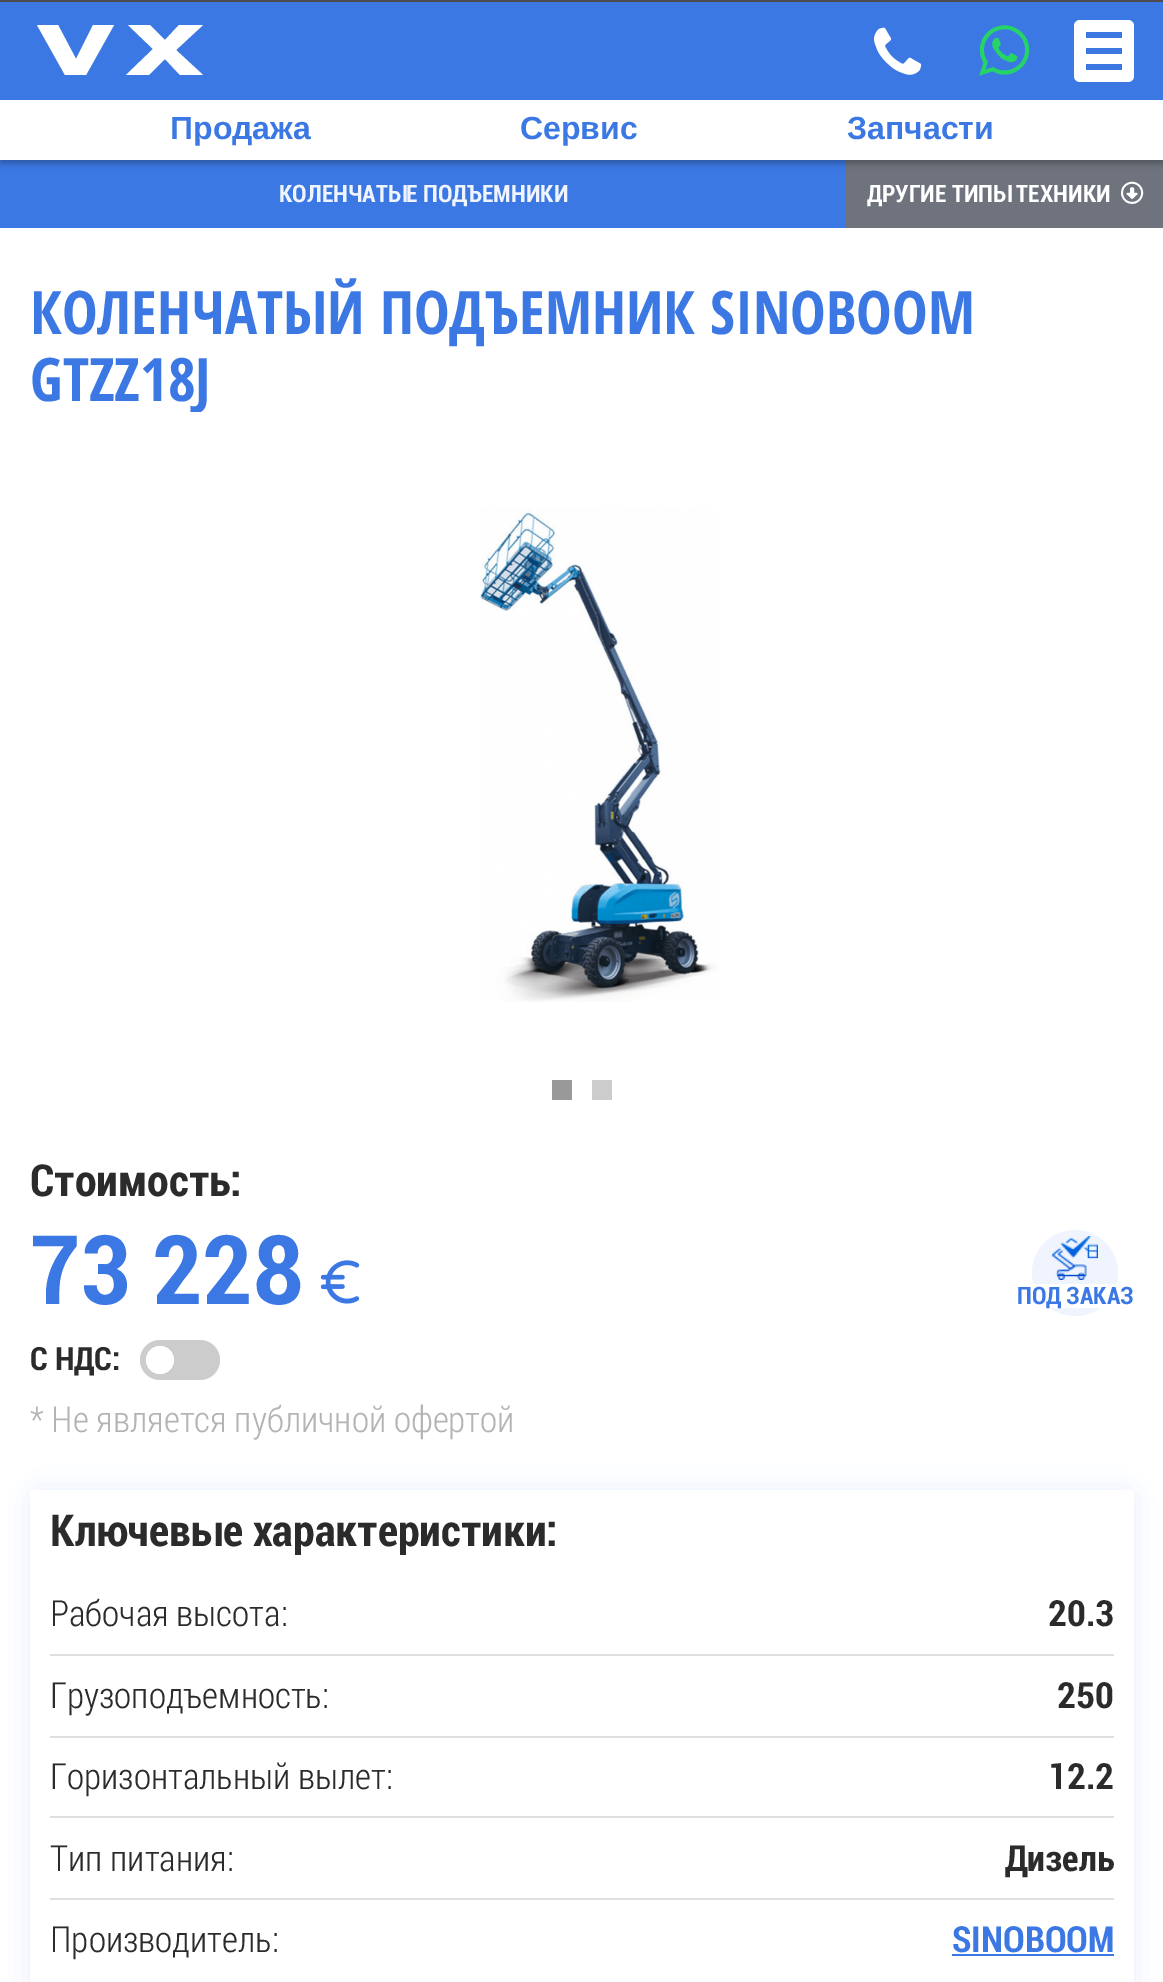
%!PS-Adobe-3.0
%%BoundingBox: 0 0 1163 1982
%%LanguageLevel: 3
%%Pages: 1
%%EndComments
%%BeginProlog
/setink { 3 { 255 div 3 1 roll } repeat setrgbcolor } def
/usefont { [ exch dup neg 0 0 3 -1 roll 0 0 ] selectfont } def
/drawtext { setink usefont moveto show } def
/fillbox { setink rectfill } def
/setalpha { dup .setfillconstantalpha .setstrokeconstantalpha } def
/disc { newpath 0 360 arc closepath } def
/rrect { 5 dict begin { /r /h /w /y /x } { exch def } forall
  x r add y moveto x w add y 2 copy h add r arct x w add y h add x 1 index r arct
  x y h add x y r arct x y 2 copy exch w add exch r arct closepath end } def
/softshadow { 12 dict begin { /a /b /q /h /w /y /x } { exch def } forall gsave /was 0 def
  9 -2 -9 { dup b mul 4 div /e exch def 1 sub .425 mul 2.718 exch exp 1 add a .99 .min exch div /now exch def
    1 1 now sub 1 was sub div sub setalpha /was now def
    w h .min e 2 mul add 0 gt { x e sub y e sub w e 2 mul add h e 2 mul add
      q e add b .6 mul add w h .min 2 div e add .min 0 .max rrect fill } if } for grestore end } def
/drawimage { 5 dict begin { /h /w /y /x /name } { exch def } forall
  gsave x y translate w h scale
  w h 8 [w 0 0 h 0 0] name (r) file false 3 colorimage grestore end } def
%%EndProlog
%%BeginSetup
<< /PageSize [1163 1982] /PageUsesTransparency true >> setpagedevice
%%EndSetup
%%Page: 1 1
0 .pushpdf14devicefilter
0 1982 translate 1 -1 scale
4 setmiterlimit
0 0 1163 1982 255 255 255 fillbox
0 160 846 68 60 120 228 fillbox
846 160 317 68 110 115 126 fillbox
0 0 0 setink
0 4 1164 160 0 3 0.25 softshadow
0 2 1163 98 60 120 228 fillbox
0 0 1163 2 77 77 77 fillbox
255 255 255 setink
76 59 moveto 58 25 lineto 37 25 lineto 65 75 lineto 86 75 lineto 114 25 lineto 93 25 lineto closepath fill
203 25 moveto 179 25 lineto 165 40 lineto 150 25 lineto 128 25 lineto 153 49 lineto 126 75 lineto 149 75 lineto 165 59 lineto 180 75 lineto 203 75 lineto 176 50 lineto closepath fill
(assets/img1.rgb) 874 27 48 48 drawimage
(7) 979 71 /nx-Regular 60 37 211 102 drawtext
255 255 255 setink
1074 20 60 62 6 rrect fill
1086 32 36 6 60 120 228 fillbox
1086 48 36 6 60 120 228 fillbox
1086 64 36 6 60 120 228 fillbox
0 100 1163 60 255 255 255 fillbox
(Продажа) 170 139 /LiberationSans-Bold 32 60 120 228 drawtext
(Сервис) 520 139 /LiberationSans-Bold 32 60 120 228 drawtext
(Запчасти) 847 139 /LiberationSans-Bold 32 60 120 228 drawtext
(КОЛЕНЧАТЫЕ ПОДЪЕМНИКИ) 279 202 /Roboto-Bold 24 239 244 255 drawtext
(ДРУГИЕ ТИПЫ ТЕХНИКИ) 867 202 /Roboto-Bold 24 255 255 255 drawtext
(8) 1120 200 /nx-Regular 24 255 255 255 drawtext
(КОЛЕНЧАТЫЙ ПОДЪЕМНИК SINOBOOM) 30 334 /OpenSansCondensed-Bold 60 60 120 228 drawtext
(GTZZ18J) 30 401 /OpenSansCondensed-Bold 60 60 120 228 drawtext
190 412 12 2 255 255 255 fillbox
(assets/img2.rgb) 480 508 239 494 drawimage
552 1080 20 20 153 153 153 fillbox
592 1080 20 20 204 204 204 fillbox
(Стоимость:) 30 1196 /Roboto-Bold 44 43 43 43 drawtext
(assets/img3.rgb) 320 1260 40 44 drawimage
(73 228) 30 1304 /Roboto-Bold 96 60 120 228 drawtext
239 244 255 setink
1075 1273 43 disc fill
(assets/img4.rgb) 1052 1236 46 44 drawimage
1033 1284 84 24 255 255 255 fillbox
(ПОД ЗАКАЗ) 1017 1304 /Roboto-Bold 24 60 120 228 drawtext
(С НДС:) 30 1370 /Roboto-Bold 32 43 43 43 drawtext
204 204 204 setink
140 1340 80 40 20 rrect fill
255 255 255 setink
160 1360 14 disc fill
(* Не является публичной офертой) 30 1432 /RobotoCondensed-Light 36 180 180 180 drawtext
gsave
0 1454 moveto 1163 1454 lineto 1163 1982 lineto 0 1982 lineto closepath 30 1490 moveto 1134 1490 lineto 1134 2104 lineto 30 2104 lineto closepath eoclip newpath
60 120 228 setink
40 1500 1084 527 0 15 0.25 softshadow
grestore
(Ключевые характеристики:) 50 1546 /Roboto-Bold 44 43 43 43 drawtext
50 1654 1064 2 223 223 223 fillbox
(Рабочая высота:) 50 1626 /RobotoCondensed-Light 36 43 43 43 drawtext
(20.3) 1048 1626 /Roboto-Bold 36 43 43 43 drawtext
50 1736 1064 2 223 223 223 fillbox
(Грузоподъемность:) 50 1708 /RobotoCondensed-Light 36 43 43 43 drawtext
(250) 1057 1708 /Roboto-Bold 36 43 43 43 drawtext
50 1816 1064 2 223 223 223 fillbox
(Горизонтальный вылет:) 50 1789 /RobotoCondensed-Light 36 43 43 43 drawtext
(12.2) 1048 1789 /Roboto-Bold 36 43 43 43 drawtext
50 1898 1064 2 223 223 223 fillbox
(Тип питания:) 50 1871 /RobotoCondensed-Light 36 43 43 43 drawtext
(Дизель) 1005 1871 /Roboto-Bold 36 43 43 43 drawtext
(Производитель:) 50 1952 /RobotoCondensed-Light 36 43 43 43 drawtext
(SINOBOOM) 952 1952 /Roboto-Bold 36 60 120 228 drawtext
952 1954 162 2 60 120 228 fillbox
.poppdf14devicefilter showpage
%%EOF
